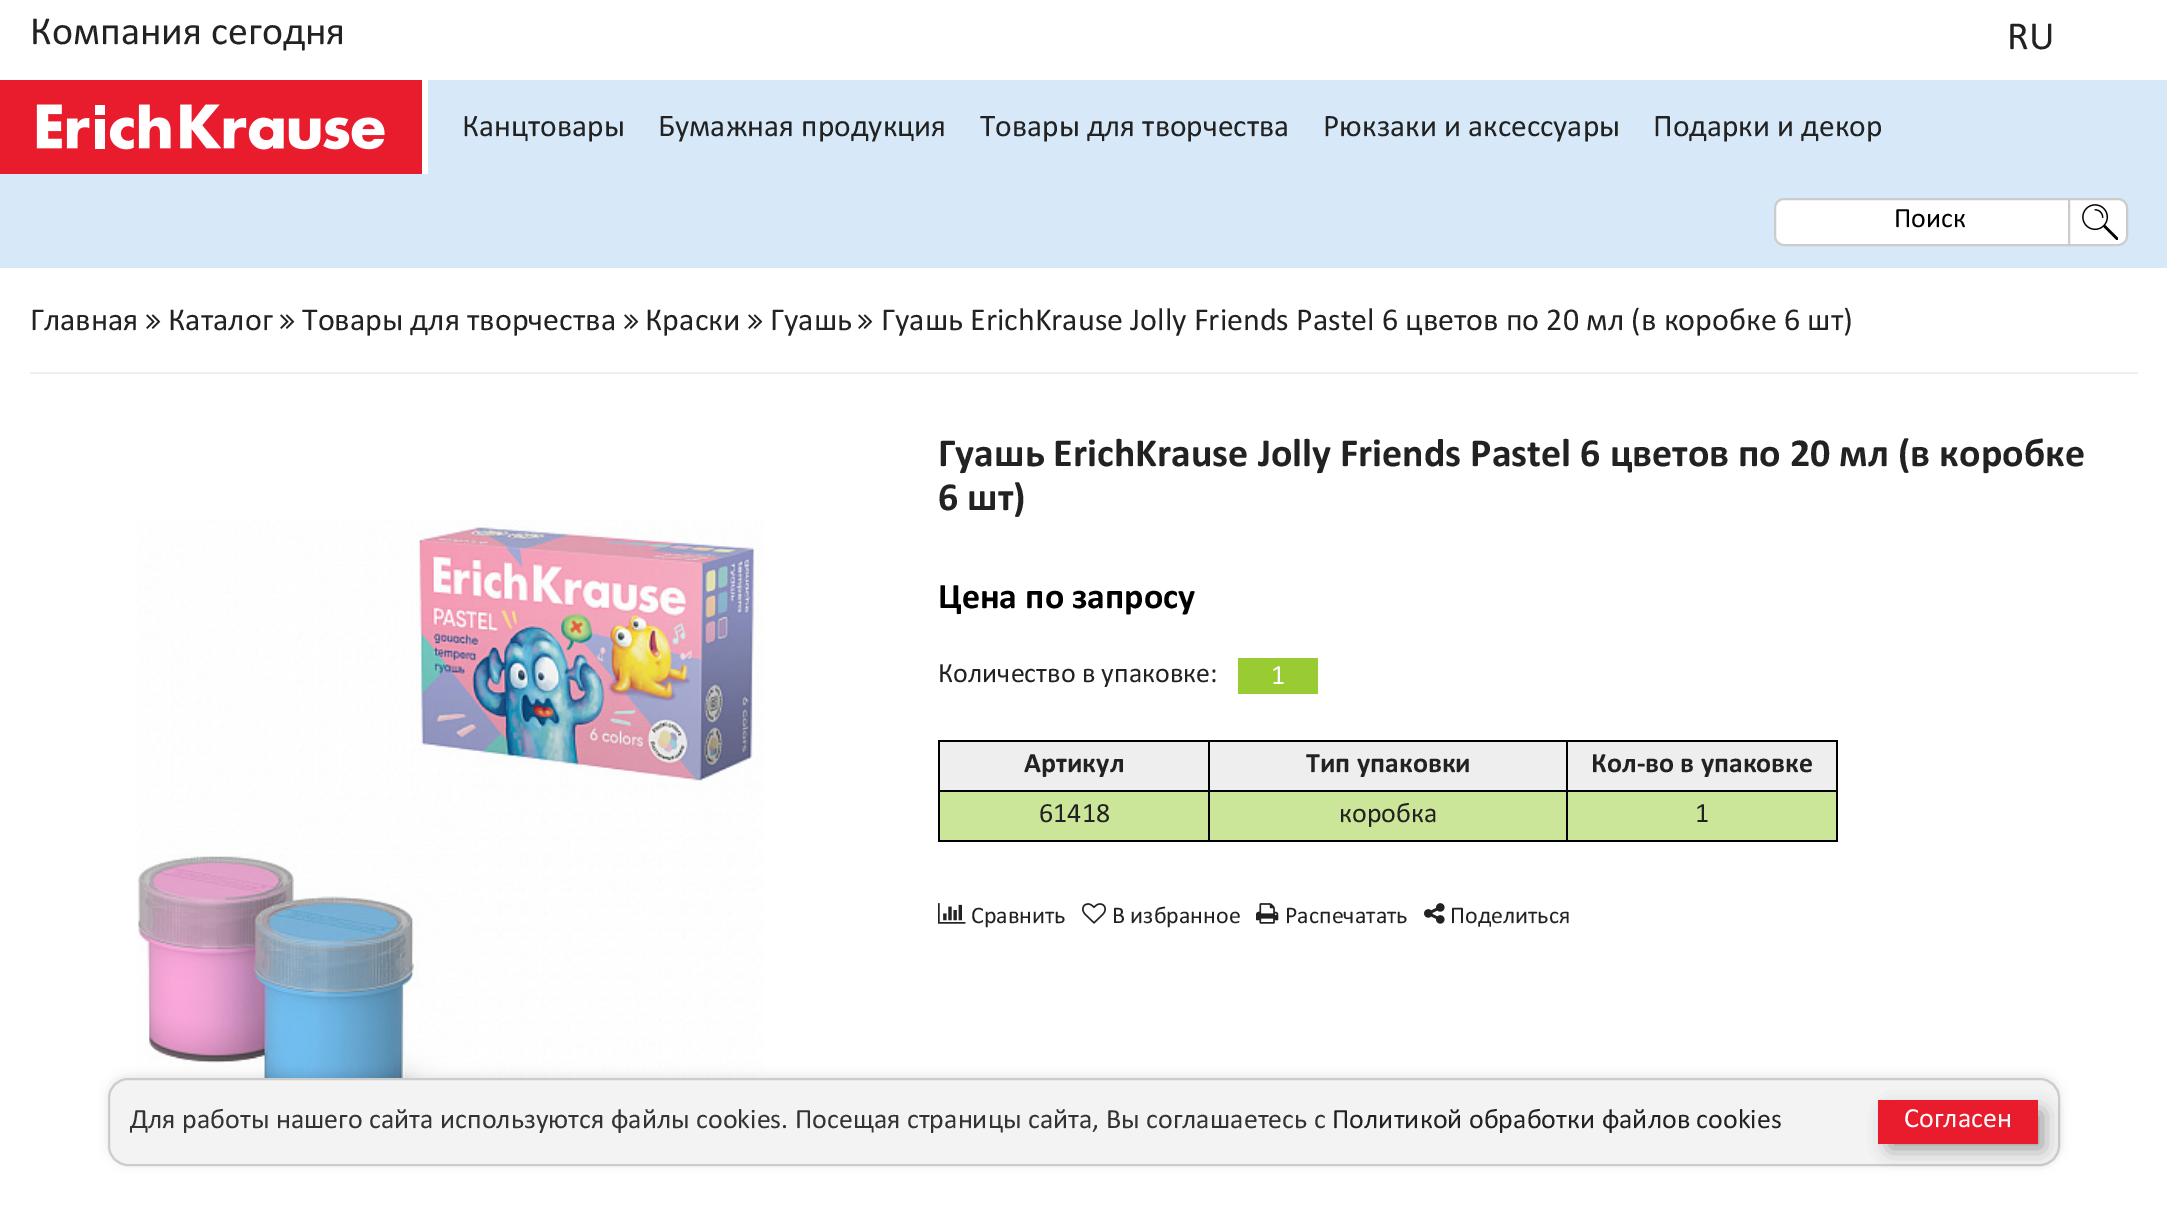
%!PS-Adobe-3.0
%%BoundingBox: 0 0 2167 1226
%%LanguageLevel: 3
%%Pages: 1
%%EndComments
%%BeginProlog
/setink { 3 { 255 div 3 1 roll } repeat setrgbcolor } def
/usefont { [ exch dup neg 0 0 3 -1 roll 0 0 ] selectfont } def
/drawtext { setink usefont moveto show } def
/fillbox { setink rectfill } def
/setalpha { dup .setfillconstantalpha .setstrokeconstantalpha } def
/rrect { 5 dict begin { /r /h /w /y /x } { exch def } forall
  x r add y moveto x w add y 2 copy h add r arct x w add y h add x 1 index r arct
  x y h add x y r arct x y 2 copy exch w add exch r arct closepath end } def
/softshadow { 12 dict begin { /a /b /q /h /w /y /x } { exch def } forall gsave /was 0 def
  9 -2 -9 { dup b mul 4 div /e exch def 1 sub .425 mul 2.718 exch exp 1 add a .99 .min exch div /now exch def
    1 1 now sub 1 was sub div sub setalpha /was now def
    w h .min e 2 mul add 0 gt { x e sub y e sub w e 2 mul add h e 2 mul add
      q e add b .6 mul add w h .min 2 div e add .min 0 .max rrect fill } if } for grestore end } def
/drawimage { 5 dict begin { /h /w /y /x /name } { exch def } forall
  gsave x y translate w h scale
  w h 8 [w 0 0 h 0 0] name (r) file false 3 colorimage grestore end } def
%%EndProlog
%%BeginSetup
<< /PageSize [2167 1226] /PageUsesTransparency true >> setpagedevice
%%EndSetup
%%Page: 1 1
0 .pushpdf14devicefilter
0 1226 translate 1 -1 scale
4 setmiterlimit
0 0 2167 1226 255 255 255 fillbox
(Компания сегодня) 30 44 /Calibri-Regular 40 34 34 34 drawtext
(RU) 2007 49 /Calibri-Regular 40 34 34 34 drawtext
0 80 2167 188 215 233 248 fillbox
0 80 422 94 233 28 46 fillbox
(assets/img1.rgb) 36 104 349 46 drawimage
422 80 6 94 255 255 255 fillbox
(Канцтовары) 462 136 /Calibri-Regular 31.5 34 34 34 drawtext
(Бумажная продукция) 658 136 /Calibri-Regular 31.5 34 34 34 drawtext
(Товары для творчества) 980 136 /Calibri-Regular 31.5 34 34 34 drawtext
(Рюкзаки и аксессуары) 1323 136 /Calibri-Regular 31.5 34 34 34 drawtext
(Подарки и декор) 1653 136 /Calibri-Regular 31.5 34 34 34 drawtext
255 255 255 setink
1784 199 moveto 2069 199 lineto 2069 245 lineto 1784 245 lineto 1779 245 1775 241 1775 236 curveto 1775 208 lineto 1775 203 1779 199 1784 199 curveto closepath gsave fill grestore
204 204 204 setink
2 setlinewidth
stroke
(Поиск) 1894 227 /Calibri-Regular 28 0 0 0 drawtext
255 255 255 setink
2069 199 moveto 2118 199 lineto 2123 199 2127 203 2127 208 curveto 2127 236 lineto 2127 241 2123 245 2118 245 curveto 2069 245 lineto closepath gsave fill grestore
204 204 204 setink
stroke
(assets/img2.rgb) 2082 204 36 36 drawimage
30 372 2108 2 238 238 238 fillbox
(Главная) 30 330 /Calibri-Regular 32 34 34 34 drawtext
(assets/img3.rgb) 146 314 15 15 drawimage
(Каталог) 168 330 /Calibri-Regular 32 34 34 34 drawtext
(assets/img3.rgb) 280 314 15 15 drawimage
(Товары для творчества) 302 330 /Calibri-Regular 32 34 34 34 drawtext
(assets/img3.rgb) 624 314 15 15 drawimage
(Краски) 645 330 /Calibri-Regular 32 34 34 34 drawtext
(assets/img3.rgb) 748 314 15 15 drawimage
(Гуашь) 770 330 /Calibri-Regular 32 34 34 34 drawtext
(assets/img3.rgb) 858 314 15 15 drawimage
(Гуашь ErichKrause Jolly Friends Pastel 6 цветов по 20 мл \(в коробке 6 шт\)) 881 330 /Calibri-Regular 32 34 34 34 drawtext
(assets/img4.rgb) 137 520 627 558 drawimage
(Гуашь ErichKrause Jolly Friends Pastel 6 цветов по 20 мл \(в коробке) 938 466 /Calibri-Bold 40 34 34 34 drawtext
(6 шт\)) 938 510 /Calibri-Bold 40 34 34 34 drawtext
(Цена по запросу) 938 608 /Calibri-Bold 36 0 0 0 drawtext
(Количество в упаковке:) 938 682 /Calibri-Regular 28 34 34 34 drawtext
1238 658 80 36 153 204 51 fillbox
(1) 1271 684 /Calibri-Regular 28 255 255 255 drawtext
940 742 896 48 238 238 238 fillbox
1566 740 272 2 0 0 0 fillbox
1566 790 272 2 0 0 0 fillbox
940 792 896 48 204 230 153 fillbox
1836 790 2 52 0 0 0 fillbox
1566 840 272 2 0 0 0 fillbox
1566 790 2 52 0 0 0 fillbox
1208 790 360 2 0 0 0 fillbox
1566 740 2 52 0 0 0 fillbox
1208 740 360 2 0 0 0 fillbox
1208 840 360 2 0 0 0 fillbox
1208 790 2 52 0 0 0 fillbox
938 790 272 2 0 0 0 fillbox
1208 740 2 52 0 0 0 fillbox
938 740 272 2 0 0 0 fillbox
938 840 272 2 0 0 0 fillbox
938 790 2 52 0 0 0 fillbox
938 740 2 52 0 0 0 fillbox
(Артикул) 1024 772 /Calibri-Bold 28 34 34 34 drawtext
(Тип упаковки) 1306 772 /Calibri-Bold 28 34 34 34 drawtext
1836 740 2 52 0 0 0 fillbox
(Кол-во в упаковке) 1591 772 /Calibri-Bold 28 34 34 34 drawtext
(61418) 1039 822 /Calibri-Regular 28 34 34 34 drawtext
(коробка) 1339 822 /Calibri-Regular 28 34 34 34 drawtext
(1) 1695 822 /Calibri-Regular 28 34 34 34 drawtext
(assets/img5.rgb) 938 903 28 21 drawimage
(Сравнить) 971 923 /Calibri-Regular 24 34 34 34 drawtext
(assets/img6.rgb) 1082 903 24 21 drawimage
(В избранное) 1112 923 /Calibri-Regular 24 34 34 34 drawtext
(assets/img7.rgb) 1256 903 23 21 drawimage
(Распечатать) 1285 923 /Calibri-Regular 24 34 34 34 drawtext
(assets/img8.rgb) 1424 903 21 21 drawimage
(Поделиться) 1450 923 /Calibri-Regular 24 34 34 34 drawtext
0 0 0 setink
108 1076 1952 88 20 5 0.1 softshadow
243 243 243 setink
109 1079 1950 86 19 rrect gsave fill grestore
204 204 204 setink
stroke
(Для работы нашего сайта используются файлы cookies. Посещая страницы сайта, Вы соглашаетесь с) 130 1128 /Calibri-Regular 28 51 51 51 drawtext
(Политикой обработки файлов cookies) 1332 1128 /Calibri-Regular 28 34 34 34 drawtext
0 0 0 setink
1890 1112 152 36 0 10 0.4 softshadow
1878 1100 160 44 233 28 46 fillbox
(Согласен) 1904 1127 /Calibri-Regular 28 255 255 255 drawtext
.poppdf14devicefilter showpage
%%EOF
